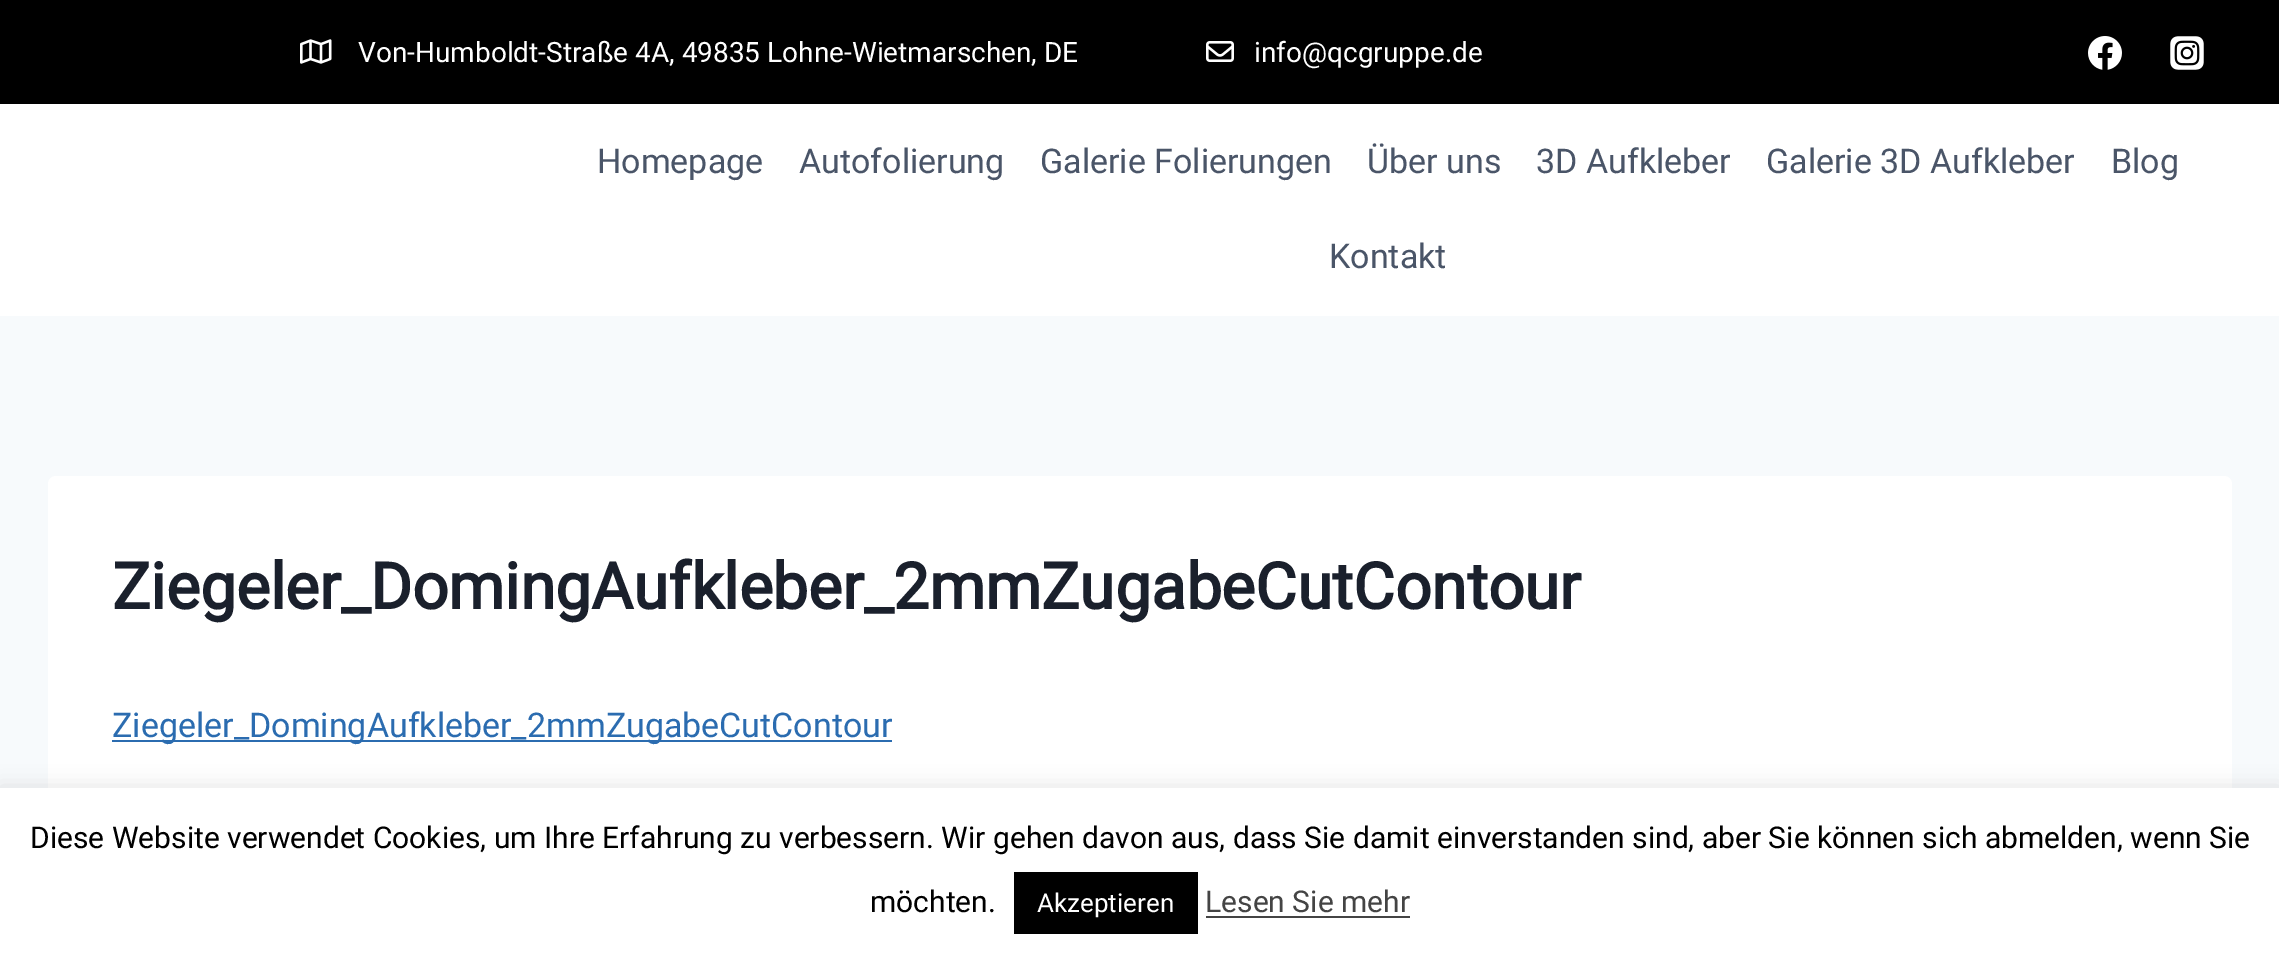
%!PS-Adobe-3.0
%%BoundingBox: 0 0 2279 957
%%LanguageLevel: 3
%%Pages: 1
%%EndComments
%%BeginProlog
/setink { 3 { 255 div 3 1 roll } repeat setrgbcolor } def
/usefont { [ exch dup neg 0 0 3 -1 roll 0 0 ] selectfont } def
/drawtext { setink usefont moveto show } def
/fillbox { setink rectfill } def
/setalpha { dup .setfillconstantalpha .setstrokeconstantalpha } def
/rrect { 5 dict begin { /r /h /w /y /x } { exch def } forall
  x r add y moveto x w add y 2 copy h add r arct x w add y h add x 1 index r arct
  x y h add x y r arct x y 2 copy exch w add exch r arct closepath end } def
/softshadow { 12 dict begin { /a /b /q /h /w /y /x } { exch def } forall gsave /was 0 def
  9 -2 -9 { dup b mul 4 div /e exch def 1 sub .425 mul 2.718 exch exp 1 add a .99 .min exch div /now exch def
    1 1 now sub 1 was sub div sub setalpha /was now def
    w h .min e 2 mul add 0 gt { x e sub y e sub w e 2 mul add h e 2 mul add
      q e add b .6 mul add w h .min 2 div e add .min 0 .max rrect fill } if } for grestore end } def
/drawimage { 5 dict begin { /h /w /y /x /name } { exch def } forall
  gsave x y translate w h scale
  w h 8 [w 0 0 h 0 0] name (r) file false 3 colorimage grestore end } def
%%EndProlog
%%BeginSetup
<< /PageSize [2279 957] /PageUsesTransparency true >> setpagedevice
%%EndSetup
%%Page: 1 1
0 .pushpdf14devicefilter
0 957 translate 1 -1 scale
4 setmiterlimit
0 0 2279 957 247 250 252 fillbox
0 104 2279 212 255 255 255 fillbox
0 0 2279 104 0 0 0 fillbox
(assets/img1.rgb) 300 39 32 25 drawimage
(Von-Humboldt-Straße 4A, 49835 Lohne-Wietmarschen, DE) 358 62 /Roboto-Regular 28 255 255 255 drawtext
(assets/img2.rgb) 1206 41 28 21 drawimage
(info@qcgruppe.de) 1254 62 /Roboto-Regular 28 255 255 255 drawtext
(assets/img3.rgb) 2088 36 34 34 drawimage
(assets/img4.rgb) 2170 36 34 34 drawimage
(Homepage) 597 173 /Roboto-Regular 34 74 85 104 drawtext
(Autofolierung) 799 173 /Roboto-Regular 34 74 85 104 drawtext
(Galerie Folierungen) 1040 173 /Roboto-Regular 34 74 85 104 drawtext
(Über uns) 1367 173 /Roboto-Regular 34 74 85 104 drawtext
(3D Aufkleber) 1536 173 /Roboto-Regular 34 74 85 104 drawtext
(Galerie 3D Aufkleber) 1766 173 /Roboto-Regular 34 74 85 104 drawtext
(Blog) 2111 173 /Roboto-Regular 34 74 85 104 drawtext
(Kontakt) 1329 268 /Roboto-Regular 34 74 85 104 drawtext
255 255 255 setink
48 476 2184 342 8 rrect fill
(Ziegeler_DomingAufkleber_2mmZugabeCutContour) 112 609 /Roboto-Bold 64 26 32 44 drawtext
112 740 780 2 43 108 176 fillbox
(Ziegeler_DomingAufkleber_2mmZugabeCutContour) 112 737 /Roboto-Regular 34 43 108 176 drawtext
172 171 171 setink
0 786 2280 170 0 10 0.3 softshadow
0 788 2279 169 255 255 255 fillbox
(Diese Website verwendet Cookies, um Ihre Erfahrung zu verbessern. Wir gehen davon aus, dass Sie damit einverstanden sind, aber Sie können sich abmelden, wenn Sie) 30 848 /Roboto-Regular 30 0 0 0 drawtext
(möchten.) 870 912 /Roboto-Regular 30 0 0 0 drawtext
1014 872 184 62 0 0 0 fillbox
(Akzeptieren) 1037 912 /Roboto-Regular 26 255 255 255 drawtext
(Lesen Sie mehr) 1205 912 /Roboto-Regular 30 68 68 68 drawtext
1206 916 204 2 68 68 68 fillbox
.poppdf14devicefilter showpage
%%EOF
